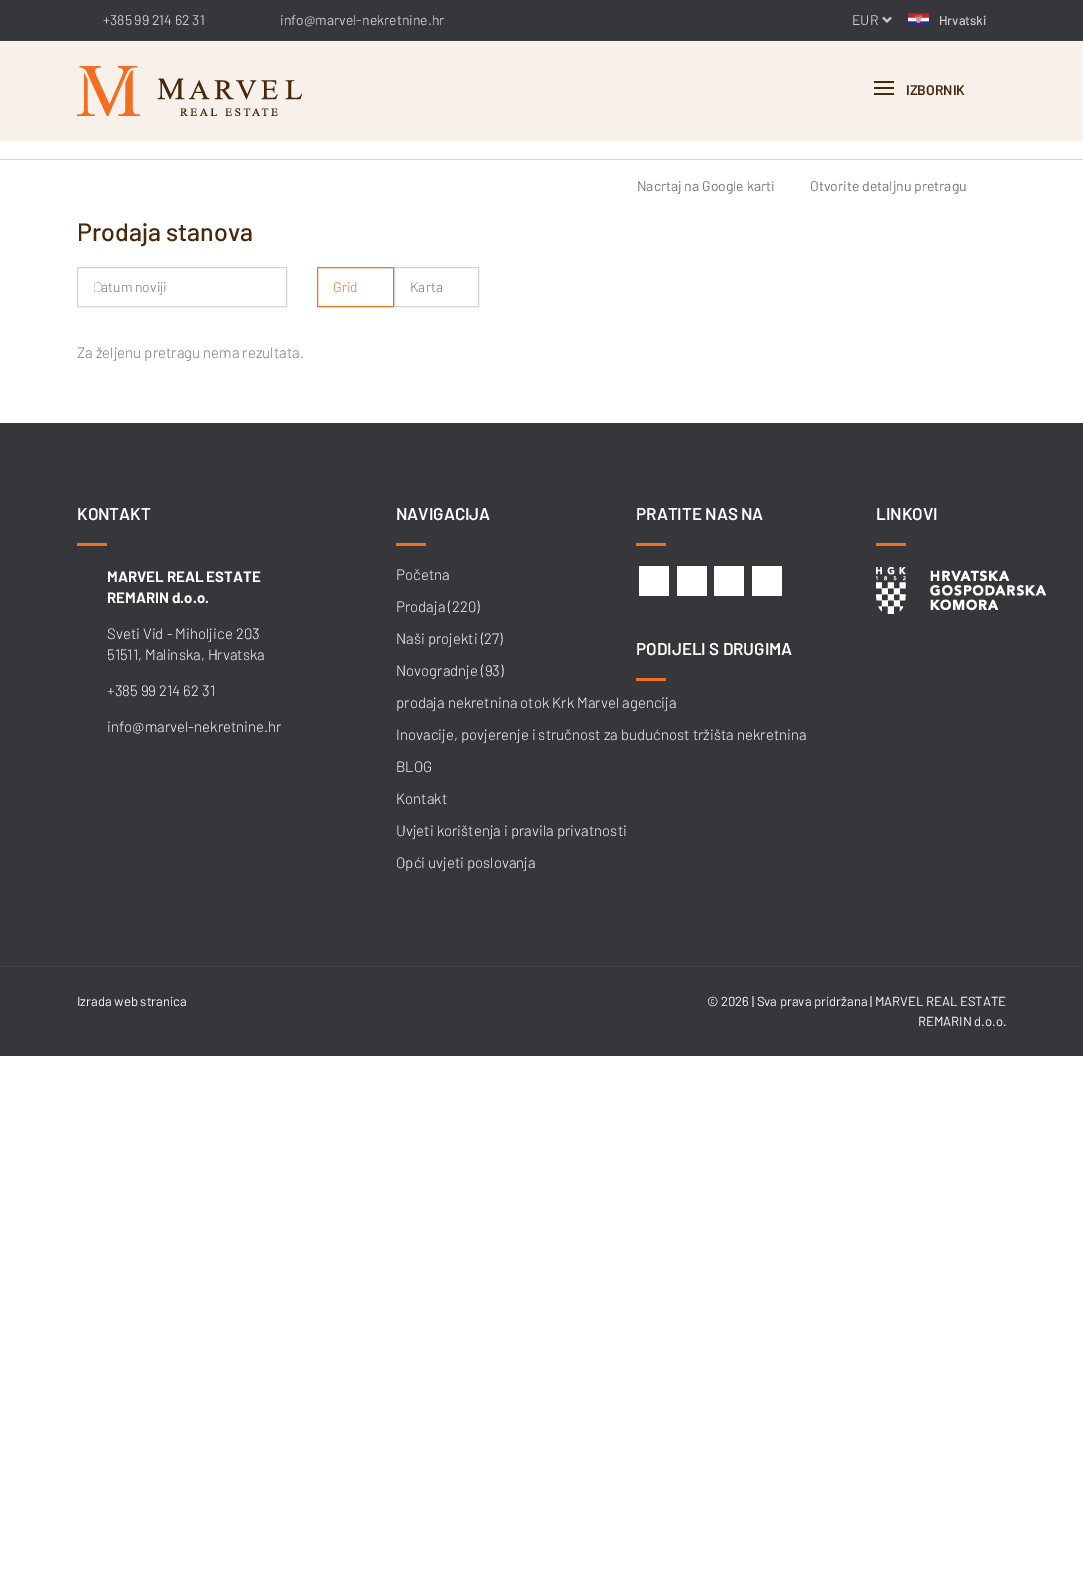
%!PS-Adobe-3.0
%%BoundingBox: 0 0 1083 1579
%%LanguageLevel: 3
%%Pages: 1
%%EndComments
%%BeginProlog
/setink { 3 { 255 div 3 1 roll } repeat setrgbcolor } def
/usefont { [ exch dup neg 0 0 3 -1 roll 0 0 ] selectfont } def
/drawtext { setink usefont moveto show } def
/fillbox { setink rectfill } def
/drawimage { 5 dict begin { /h /w /y /x /name } { exch def } forall
  gsave x y translate w h scale
  w h 8 [w 0 0 h 0 0] name (r) file false 3 colorimage grestore end } def
%%EndProlog
%%BeginSetup
<< /PageSize [1083 1579] >> setpagedevice
%%EndSetup
%%Page: 1 1
0 1579 translate 1 -1 scale
4 setmiterlimit
0 0 1083 1579 255 255 255 fillbox
0 41 1083 100 247 240 235 fillbox
0 0 1083 40 53 55 59 fillbox
0 40 1083 1 57 66 71 fillbox
(+385 99 214 62 31) 103 25 /Barlow-Regular 14 204 204 204 drawtext
(info@marvel-nekretnine.hr) 280 25 /Barlow-Regular 14 204 204 204 drawtext
2 setlinewidth
883 17.5 moveto 887 21.5 lineto 891 17.5 lineto stroke
(EUR) 852 25 /Barlow-Regular 14 204 204 204 drawtext
(assets/img1.rgb) 908 13 21 13 drawimage
(Hrvatski) 939 25 /Barlow-Medium 13 204 204 204 drawtext
(assets/img2.rgb) 77 66 225 50 drawimage
874 81 20 2 73 41 11 fillbox
874 87 20 2 73 41 11 fillbox
874 93 20 2 73 41 11 fillbox
(IZBORNIK) 906 95 /Barlow-SemiBold 14 73 41 11 drawtext
0 159 1083 1 212 212 212 fillbox
(Nacrtaj na Google karti) 637 191 /Barlow-Regular 14 119 119 119 drawtext
(Otvorite detaljnu pretragu) 810 191 /Barlow-Regular 14 119 119 119 drawtext
(Prodaja stanova) 77 241 /Barlow-Medium 25 73 41 11 drawtext
212 212 212 setink
1 setlinewidth
77.5 267.5 209 39 rectstroke
(D) 93 292 /NotoSans-Thin 14 119 119 119 drawtext
(atum noviji) 101 292 /Barlow-Light 14 119 119 119 drawtext
243 112 33 setink
317.5 267.5 76 39 rectstroke
(Grid) 333 292 /Barlow-Light 14 243 112 33 drawtext
212 212 212 setink
394.5 267.5 84 39 rectstroke
(Karta) 410 292 /Barlow-Light 14 119 119 119 drawtext
(Za željenu pretragu nema rezultata.) 77 358 /Barlow-Light 15 119 119 119 drawtext
0 423 1083 633 53 55 59 fillbox
(KONTAKT) 77 520 /Barlow-SemiBold 17 255 255 255 drawtext
77 543 30 3 243 112 33 fillbox
(MARVEL REAL ESTATE) 107 582 /Barlow-Bold 15 255 255 255 drawtext
(REMARIN d.o.o.) 107 603 /Barlow-Bold 15 255 255 255 drawtext
(Sveti Vid - Miholjice 203) 107 639 /Barlow-Light 15 255 255 255 drawtext
(51511, Malinska, Hrvatska) 107 660 /Barlow-Light 15 255 255 255 drawtext
(+385 99 214 62 31) 107 696 /Barlow-Light 15 255 255 255 drawtext
(info@marvel-nekretnine.hr) 107 732 /Barlow-Light 15 255 255 255 drawtext
(NAVIGACIJA) 396 520 /Barlow-SemiBold 17 255 255 255 drawtext
396 543 30 3 243 112 33 fillbox
(Početna) 396 580 /Barlow-Light 15 255 255 255 drawtext
(Prodaja \(220\)) 396 612 /Barlow-Light 15 255 255 255 drawtext
(Naši projekti \(27\)) 396 644 /Barlow-Light 15 255 255 255 drawtext
(Novogradnje \(93\)) 396 676 /Barlow-Light 15 255 255 255 drawtext
(prodaja nekretnina otok Krk Marvel agencija) 396 708 /Barlow-Light 15 255 255 255 drawtext
(Inovacije, povjerenje i stručnost za budućnost tržišta nekretnina) 396 740 /Barlow-Light 15 255 255 255 drawtext
(BLOG) 396 772 /Barlow-Light 15 255 255 255 drawtext
(Kontakt) 396 804 /Barlow-Light 15 255 255 255 drawtext
(Uvjeti korištenja i pravila privatnosti) 396 836 /Barlow-Light 15 255 255 255 drawtext
(Opći uvjeti poslovanja) 396 868 /Barlow-Light 15 255 255 255 drawtext
(PRATITE NAS NA) 636 520 /Barlow-SemiBold 17 255 255 255 drawtext
636 543 30 3 243 112 33 fillbox
639 566 30 30 255 255 255 fillbox
677 566 30 30 255 255 255 fillbox
714 566 30 30 255 255 255 fillbox
752 566 30 30 255 255 255 fillbox
(PODIJELI S DRUGIMA) 636 655 /Barlow-SemiBold 17 255 255 255 drawtext
636 678 30 3 243 112 33 fillbox
(LINKOVI) 876 520 /Barlow-SemiBold 17 255 255 255 drawtext
876 543 30 3 243 112 33 fillbox
(assets/img3.rgb) 876 567 170 47 drawimage
0 966 1083 1 63 64 66 fillbox
(Izrada web stranica) 77 1006 /Barlow-Regular 13.1 255 255 255 drawtext
(© 2026 | Sva prava pridržana | MARVEL REAL ESTATE) 707 1006 /Barlow-Regular 13.1 255 255 255 drawtext
(REMARIN d.o.o.) 918 1026 /Barlow-Regular 13.1 255 255 255 drawtext
showpage
%%EOF
